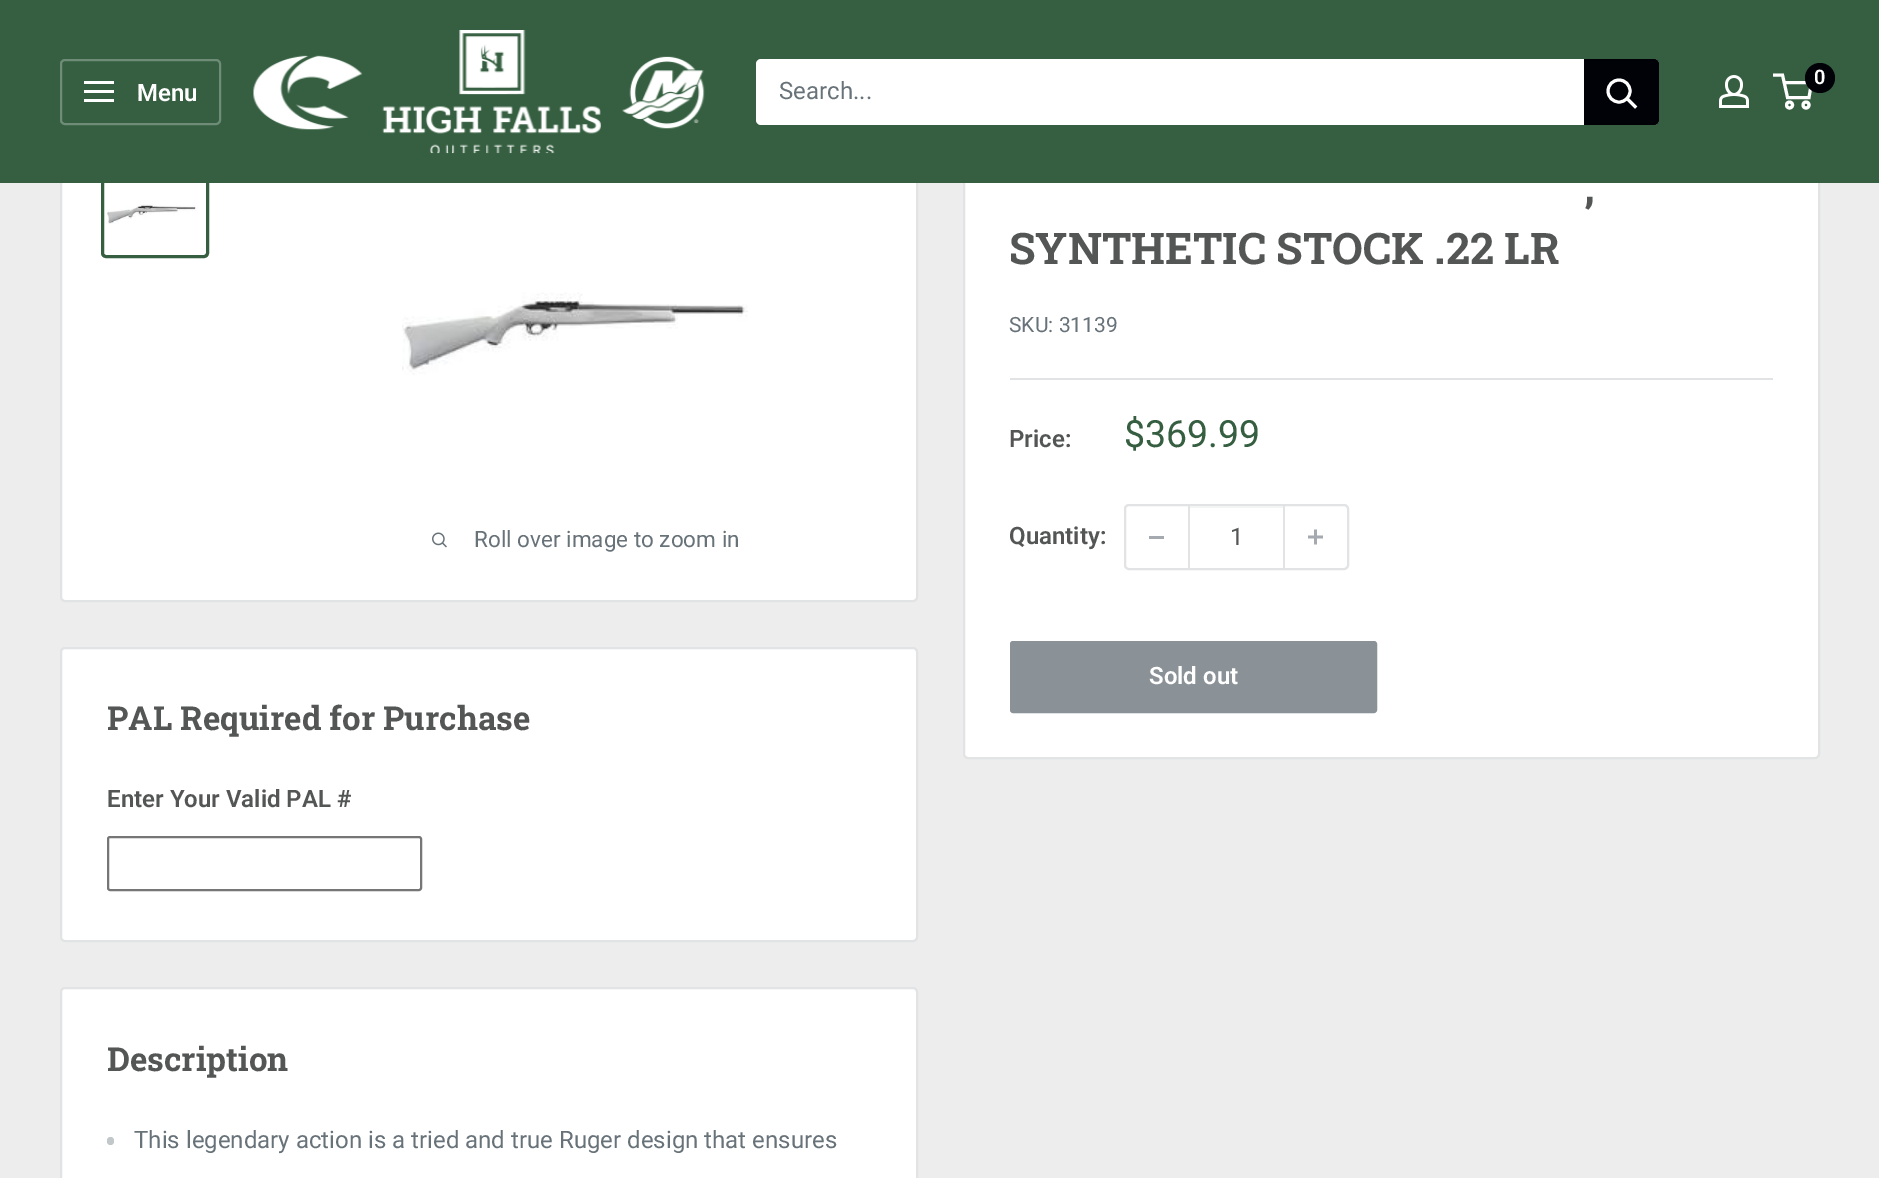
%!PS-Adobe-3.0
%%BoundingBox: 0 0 1879 1178
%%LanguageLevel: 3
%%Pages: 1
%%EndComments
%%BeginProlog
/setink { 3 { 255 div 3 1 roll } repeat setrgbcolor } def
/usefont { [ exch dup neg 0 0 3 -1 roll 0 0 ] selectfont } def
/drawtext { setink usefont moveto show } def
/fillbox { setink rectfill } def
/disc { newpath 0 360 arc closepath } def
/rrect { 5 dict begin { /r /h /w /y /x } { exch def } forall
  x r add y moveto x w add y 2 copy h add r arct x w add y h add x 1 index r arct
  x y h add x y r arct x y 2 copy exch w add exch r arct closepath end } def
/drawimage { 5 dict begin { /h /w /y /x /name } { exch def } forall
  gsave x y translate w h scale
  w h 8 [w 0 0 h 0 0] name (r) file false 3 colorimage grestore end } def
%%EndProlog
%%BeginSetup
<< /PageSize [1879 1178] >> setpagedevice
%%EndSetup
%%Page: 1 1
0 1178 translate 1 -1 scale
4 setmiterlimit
0 0 1879 1178 237 237 237 fillbox
255 255 255 setink
61 127 856 474 4 rrect gsave fill grestore
225 227 228 setink
2 setlinewidth
stroke
53 95 64 setink
3 setlinewidth
102.5 168.5 105 88 3.5 rrect stroke
255 255 255 setink
964 127 855 631 4 rrect gsave fill grestore
225 227 228 setink
2 setlinewidth
stroke
0 0 1879 183 53 95 64 fillbox
(assets/img1.rgb) 253 30 452 124 drawimage
(assets/img2.rgb) 1719 75 30 33 drawimage
255 255 255 setink
3 setlinewidth
1789.5 105 3 disc stroke
1806 105 3 disc stroke
1784 82.5 moveto 1811.5 82.5 lineto 1809 97.5 lineto 1787.5 97.5 lineto 1782.5 75 lineto 1773 75 lineto stroke
0 2 8 setink
1820 78 15 disc fill
(0) 1814 84 /Roboto-SemiBold 20 255 255 255 drawtext
110 140 119 setink
2 setlinewidth
61 60 159 64 4 rrect stroke
(assets/img3.rgb) 84 81 30 21 drawimage
(Menu) 137 101 /Roboto-SemiBold 24 255 255 255 drawtext
756 59 903 66 5 rrect fill
(Search...) 779 99 /Roboto-Regular 24 103 114 121 drawtext
0 2 8 setink
1584 59 moveto 1654 59 lineto 1657 59 1659 61 1659 64 curveto 1659 120 lineto 1659 123 1657 125 1654 125 curveto 1584 125 lineto closepath fill
255 255 255 setink
3 setlinewidth
2 setlinecap
1635 106.5 moveto 1627.5 99 lineto stroke
0 setlinecap
1619 91 11 disc stroke
(assets/img4.rgb) 106 204 92 20 drawimage
(assets/img5.rgb) 402 292 346 83 drawimage
(assets/img6.rgb) 432 532 15 16 drawimage
(Roll over image to zoom in) 474 547 /Roboto-Regular 22.5 103 114 121 drawtext
(,) 1584 202 /RobotoSlab-Bold 43.5 84 86 85 drawtext
(SYNTHETIC STOCK .22 LR) 1009 264 /RobotoSlab-Bold 43.5 84 86 85 drawtext
(SKU: 31139) 1009 332 /Roboto-Regular 21 103 114 121 drawtext
1010 378 763 2 225 227 228 fillbox
(Price:) 1009 447 /Roboto-SemiBold 24 84 86 85 drawtext
($369.99) 1124 447 /Roboto-Regular 37.5 53 95 64 drawtext
(Quantity:) 1009 544 /Roboto-SemiBold 24 84 86 85 drawtext
225 227 228 setink
2 setlinewidth
1125 505 223 64 4 rrect stroke
1149 536 15 3 164 170 175 fillbox
1190 506 93 2 243 244 244 fillbox
1283 506 2 63 225 227 228 fillbox
1188 506 2 63 225 227 228 fillbox
(1) 1230 545 /Roboto-Regular 24 84 86 85 drawtext
(assets/img7.rgb) 1308 529 15 16 drawimage
138 146 151 setink
1011 642 365 70 2 rrect gsave fill grestore
stroke
(Sold out) 1149 684 /Roboto-SemiBold 24 255 255 255 drawtext
61 648 856 293 4 rrect gsave fill grestore
225 227 228 setink
stroke
(PAL Required for Purchase) 107 730 /RobotoSlab-Bold 33 84 86 85 drawtext
(Enter Your Valid PAL #) 107 807 /Roboto-SemiBold 24 84 86 85 drawtext
118 118 118 setink
108 837 313 53 2 rrect stroke
255 255 255 setink
61 988 856 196 4 rrect gsave fill grestore
225 227 228 setink
stroke
(Description) 107 1071 /RobotoSlab-Bold 33 84 86 85 drawtext
194 199 201 setink
107 1137 7 8 3.5 rrect fill
(This legendary action is a tried and true Ruger design that ensures) 134 1148 /Roboto-Regular 24 103 114 121 drawtext
showpage
%%EOF
